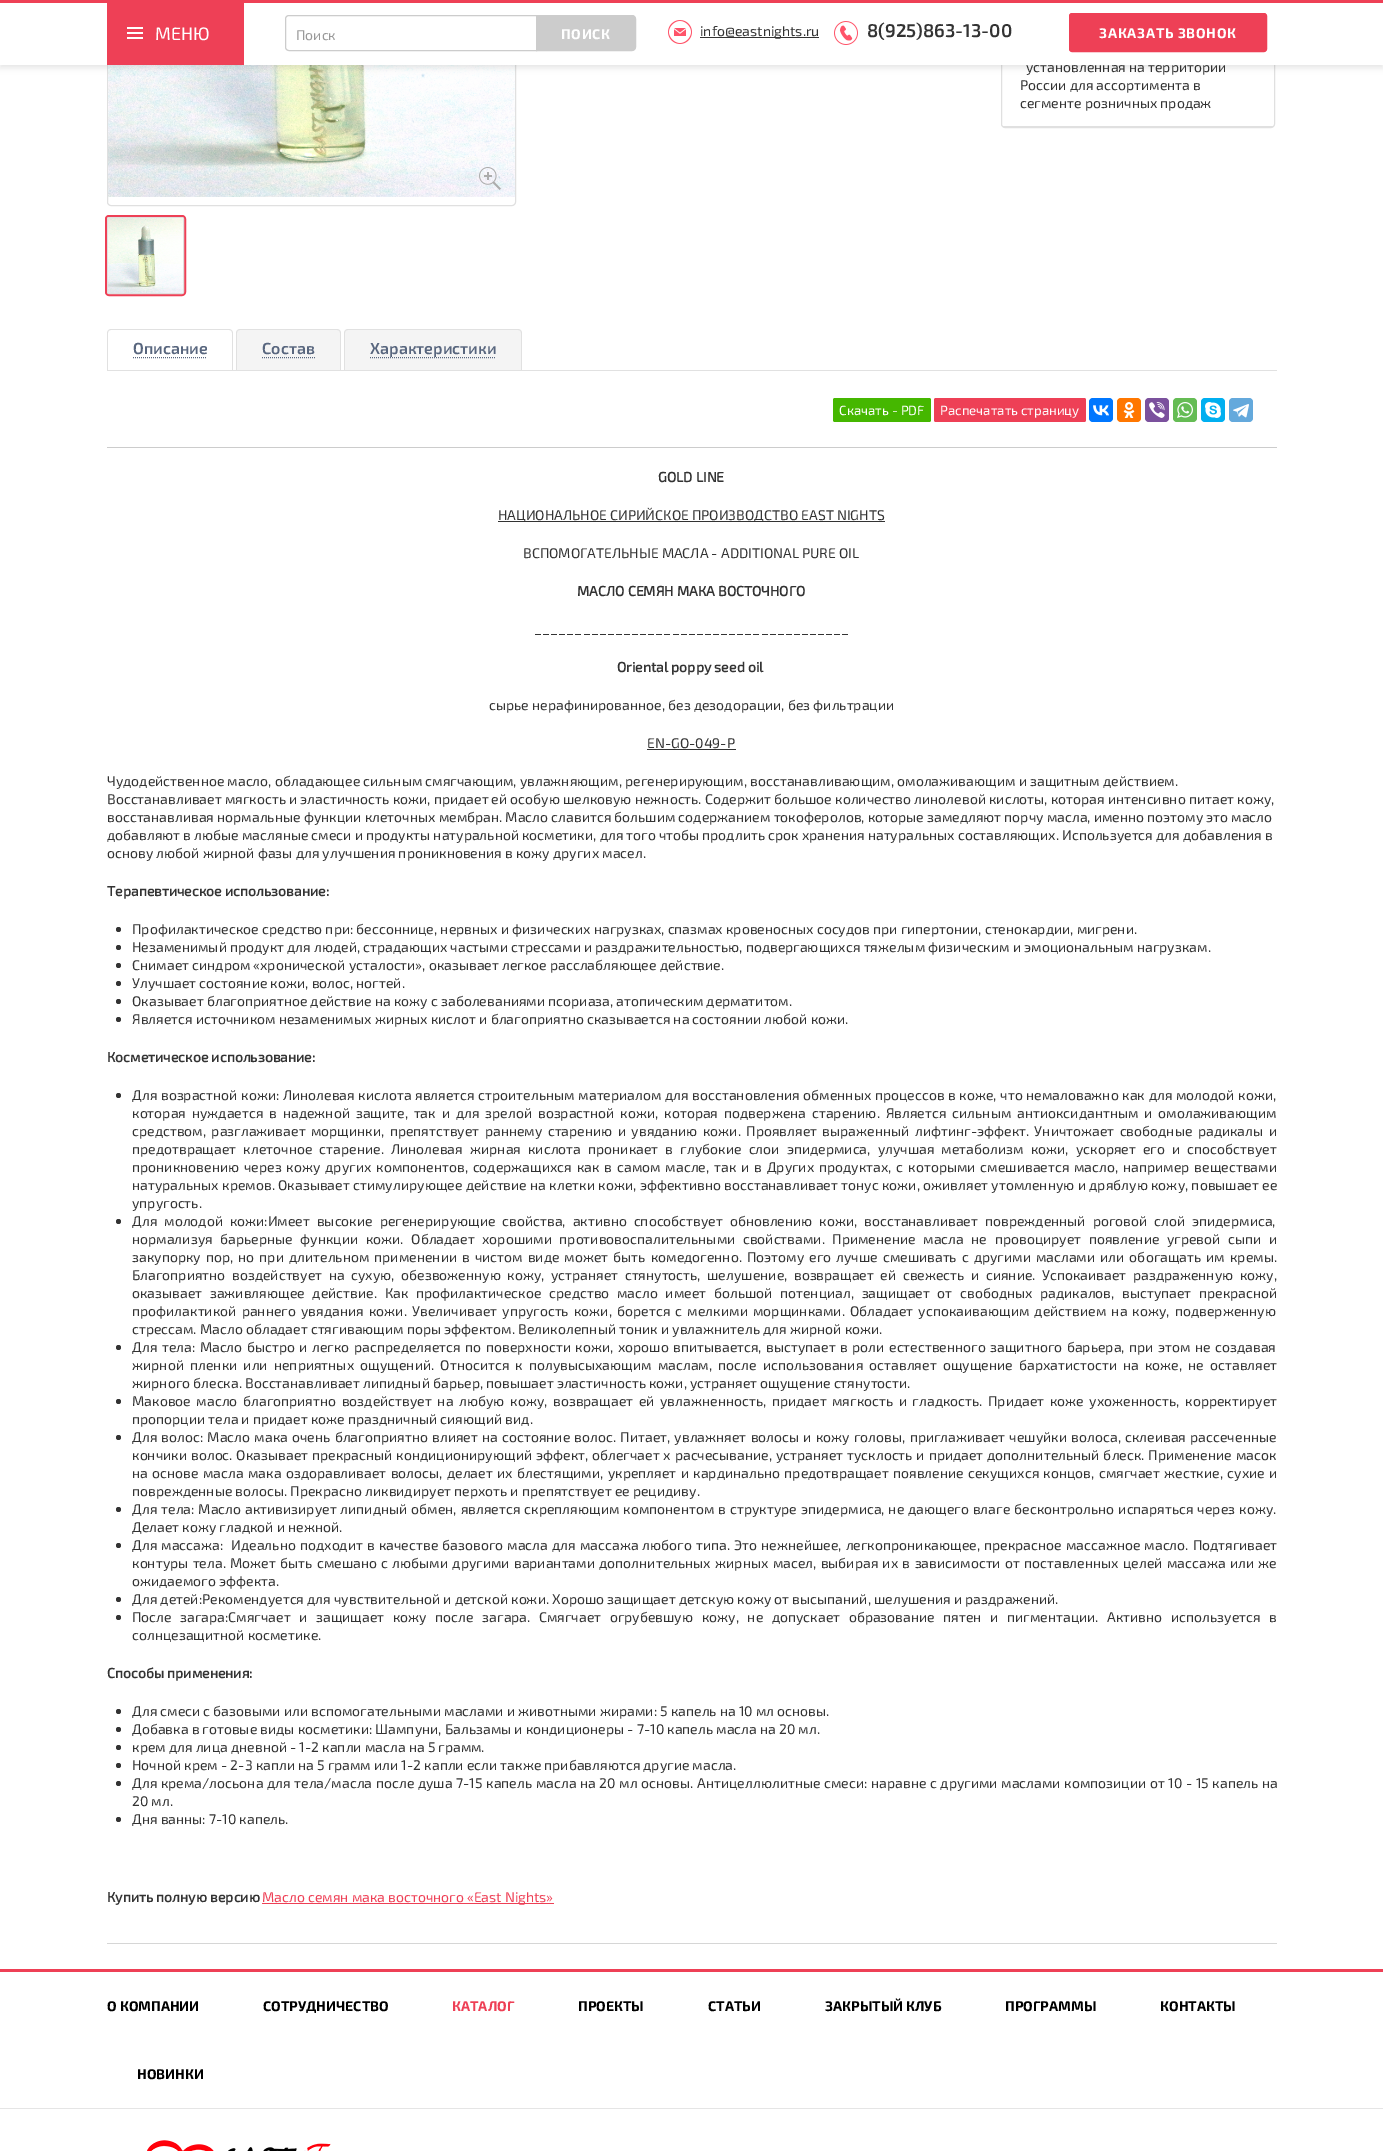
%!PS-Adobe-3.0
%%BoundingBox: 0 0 1383 2151
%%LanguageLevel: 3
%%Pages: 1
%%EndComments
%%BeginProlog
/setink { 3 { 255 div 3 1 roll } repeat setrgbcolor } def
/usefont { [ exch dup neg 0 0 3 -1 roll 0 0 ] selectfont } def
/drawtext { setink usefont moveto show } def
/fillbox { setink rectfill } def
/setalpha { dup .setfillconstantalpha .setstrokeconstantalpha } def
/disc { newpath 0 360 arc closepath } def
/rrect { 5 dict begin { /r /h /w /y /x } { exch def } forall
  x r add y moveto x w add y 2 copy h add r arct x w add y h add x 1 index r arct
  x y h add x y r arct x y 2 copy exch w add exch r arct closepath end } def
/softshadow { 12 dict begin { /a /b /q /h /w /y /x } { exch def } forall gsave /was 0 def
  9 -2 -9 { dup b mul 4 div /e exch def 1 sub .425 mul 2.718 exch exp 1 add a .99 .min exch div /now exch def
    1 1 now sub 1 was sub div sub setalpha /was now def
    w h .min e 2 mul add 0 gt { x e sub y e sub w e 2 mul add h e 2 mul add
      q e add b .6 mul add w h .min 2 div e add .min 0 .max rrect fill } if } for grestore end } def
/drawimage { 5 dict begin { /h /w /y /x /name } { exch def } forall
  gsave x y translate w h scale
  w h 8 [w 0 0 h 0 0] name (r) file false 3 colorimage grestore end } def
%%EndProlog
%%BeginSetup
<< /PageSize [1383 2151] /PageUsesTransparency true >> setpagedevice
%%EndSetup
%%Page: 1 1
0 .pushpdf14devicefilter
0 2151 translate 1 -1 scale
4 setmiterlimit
0 0 1383 2151 255 255 255 fillbox
224 224 224 setink
107.5 -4.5 408 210 3.5 rrect stroke
(assets/img4.rgb) 108 65 407 132 drawimage
1001.5 -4.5 273 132 3.5 rrect stroke
0 0 0 setink
0 3 1383 65 0 3 0.1 softshadow
0 3 1383 62 255 255 255 fillbox
0 0 1383 3 238 64 86 fillbox
107 3 137 62 238 64 86 fillbox
(assets/img1.rgb) 127 27 16 12 drawimage
(МЕНЮ) 155 40 /Exo2-Regular 18 255 255 255 drawtext
204 204 204 setink
289 15.5 moveto 536.5 15.5 lineto 536.5 50.5 lineto 289 50.5 lineto 287 50.5 285.5 49 285.5 47 curveto 285.5 19 lineto 285.5 17 287 15.5 289 15.5 curveto closepath stroke
(Поиск) 296 40 /Exo2-Regular 14 153 153 153 drawtext
204 204 204 setink
536.5 15.5 moveto 632 15.5 lineto 634 15.5 635.5 17 635.5 19 curveto 635.5 47 lineto 635.5 49 634 50.5 632 50.5 curveto 536.5 50.5 lineto closepath gsave fill grestore
stroke
/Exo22-Bold 14 usefont
255 255 255 setink
561 39 moveto 0.75 0 (ПОИСК) ashow
(assets/img2.rgb) 668 20 24 24 drawimage
700 37 119 1 51 51 51 fillbox
(info@eastnights.ru) 700 36 /Exo2-Regular 14 51 51 51 drawtext
(assets/img3.rgb) 834 21 24 24 drawimage
(8\(925\)863-13-00) 867 37 /Exo2-SemiBold 18.5 51 51 51 drawtext
238 64 86 setink
1069.5 13.5 197 38 2.5 rrect gsave fill grestore
stroke
/Exo22-Bold 14 usefont
255 255 255 setink
1099 38 moveto 0.75 0 (ЗАКАЗАТЬ ЗВОНОК) ashow
(assets/img5.rgb) 479 167 22 23 drawimage
238 64 86 setink
2 setlinewidth
106 216 79 79 3 rrect stroke
224 224 224 setink
1 setlinewidth
107.5 217.5 76 76 1.5 rrect stroke
(assets/img6.rgb) 108 218 75 75 drawimage
1002 126 272 1 224 224 224 fillbox
(установленная на территории) 1026 72 /Exo2-Regular 14 51 51 51 drawtext
(России для ассортимента в) 1020 90 /Exo2-Regular 14 51 51 51 drawtext
(сегменте розничных продаж) 1020 108 /Exo2-Regular 14 51 51 51 drawtext
107 370 1170 1 225 225 225 fillbox
111 329 moveto 229 329 lineto 231 329 233 331 233 333 curveto 233 370 lineto 107 370 lineto 107 333 lineto 107 331 109 329 111 329 curveto closepath 111 330 moveto 229 330 lineto 231 330 232 331 232 333 curveto 232 370 lineto 108 370 lineto 108 333 lineto 108 331 109 330 111 330 curveto closepath eofill
(Описание) 133 354 /Exo2-SemiBold 16 88 102 126 drawtext
[1 1] 0 setdash
133 357.5 moveto 207 357.5 lineto stroke
244 244 244 setink
240 329 moveto 337 329 lineto 339 329 341 331 341 333 curveto 341 370 lineto 236 370 lineto 236 333 lineto 236 331 238 329 240 329 curveto closepath fill
225 225 225 setink
240 329 moveto 337 329 lineto 339 329 341 331 341 333 curveto 341 370 lineto 236 370 lineto 236 333 lineto 236 331 238 329 240 329 curveto closepath 240 330 moveto 337 330 lineto 339 330 340 331 340 333 curveto 340 370 lineto 237 370 lineto 237 333 lineto 237 331 238 330 240 330 curveto closepath eofill
(Состав) 262 354 /Exo2-SemiBold 16 88 102 126 drawtext
262 357.5 moveto 315 357.5 lineto stroke
244 244 244 setink
348 329 moveto 518 329 lineto 520 329 522 331 522 333 curveto 522 370 lineto 344 370 lineto 344 333 lineto 344 331 346 329 348 329 curveto closepath fill
225 225 225 setink
348 329 moveto 518 329 lineto 520 329 522 331 522 333 curveto 522 370 lineto 344 370 lineto 344 333 lineto 344 331 346 329 348 329 curveto closepath 348 330 moveto 518 330 lineto 520 330 521 331 521 333 curveto 521 370 lineto 345 370 lineto 345 333 lineto 345 331 346 330 348 330 curveto closepath eofill
88 102 126 setink
370 357.5 moveto 496 357.5 lineto stroke
(Характеристики) 370 354 /Exo2-SemiBold 16 88 102 126 drawtext
107 1943 1170 1 214 214 214 fillbox
107 447 1170 1 204 204 204 fillbox
69 183 0 setink
833 398 98 24 2 rrect fill
(Скачать - PDF) 839 415 /Exo2-Regular 13.25 255 255 255 drawtext
238 64 86 setink
934 398 152 24 2 rrect fill
(Распечатать страницу) 940 415 /Exo2-Regular 13.25 255 255 255 drawtext
0 119 255 setink
1089 398 24 24 4 rrect fill
(assets/img7.rgb) 1093 405 16 11 drawimage
255 119 0 setink
1117 398 24 24 4 rrect fill
(assets/img8.rgb) 1123 402 12 16 drawimage
123 81 157 setink
1145 398 24 24 4 rrect fill
(assets/img9.rgb) 1149 402 16 16 drawimage
101 188 84 setink
1173 398 24 24 4 rrect fill
(assets/img10.rgb) 1177 402 16 16 drawimage
0 175 240 setink
1201 398 24 24 4 rrect fill
(assets/img11.rgb) 1205 402 16 16 drawimage
100 169 220 setink
1229 398 24 24 4 rrect fill
(assets/img12.rgb) 1233 404 16 14 drawimage
(GOLD LINE) 658 482 /Exo2-Bold 14 51 51 51 drawtext
498 521 387 1 51 51 51 fillbox
(НАЦИОНАЛЬНОЕ СИРИЙСКОЕ ПРОИЗВОДСТВО EAST NIGHTS) 498 520 /Exo2-Regular 14 51 51 51 drawtext
(ВСПОМОГАТЕЛЬНЫЕ МАСЛА - ADDITIONAL PURE OIL) 523 558 /Exo2-Regular 14 51 51 51 drawtext
(МАСЛО СЕМЯН МАКА ВОСТОЧНОГО) 577 596 /Exo2-Bold 14 51 51 51 drawtext
(_______________________________________) 534 634 /Exo2-Regular 14 51 51 51 drawtext
(Oriental pорру seed oil) 617 672 /Exo2-Bold 14 51 51 51 drawtext
(сырье нерафинированное, без дезодорации, без фильтрации) 489 710 /Exo2-Regular 14 51 51 51 drawtext
(EN-GO-049-P) 647 748 /Exo2-Regular 14 51 51 51 drawtext
647 749 89 1 51 51 51 fillbox
(Чудодейственное масло, обладающее сильным смягчающим, увлажняющим, регенерирующим, восстанавливающим, омолаживающим и защитным действием.) 107 786 /Exo2-Regular 14 51 51 51 drawtext
(Восстанавливает мягкость и эластичность кожи, придает ей особую шелковую нежность. Содержит большое количество линолевой кислоты, которая интенсивно питает кожу,) 107 804 /Exo2-Regular 14 51 51 51 drawtext
(восстанавливая нормальные функции клеточных мембран. Масло славится большим содержанием токоферолов, которые замедляют порчу масла, именно поэтому это масло) 107 822 /Exo2-Regular 14 51 51 51 drawtext
(добавляют в любые масляные смеси и продукты натуральной косметики, для того чтобы продлить срок хранения натуральных составляющих. Используется для добавления в) 107 840 /Exo2-Regular 14 51 51 51 drawtext
(основу любой жирной фазы для улучшения проникновения в кожу других масел.) 107 858 /Exo2-Regular 14 51 51 51 drawtext
(Терапевтическое использование:) 107 896 /Exo2-Bold 14 51 51 51 drawtext
118.5 929.5 2.5 disc fill
(Профилактическое средство при: бессоннице, нервных и физических нагрузках, спазмах кровеносных сосудов при гипертонии, стенокардии, мигрени.) 132 934 /Exo2-Regular 14 51 51 51 drawtext
118.5 947.5 2.5 disc fill
(Незаменимый продукт для людей, страдающих частыми стрессами и раздражительностью, подвергающихся тяжелым физическим и эмоциональным нагрузкам.) 132 952 /Exo2-Regular 14 51 51 51 drawtext
118.5 965.5 2.5 disc fill
(Снимает синдром «хронической усталости», оказывает легкое расслабляющее действие.) 132 970 /Exo2-Regular 14 51 51 51 drawtext
118.5 983.5 2.5 disc fill
(Улучшает состояние кожи, волос, ногтей.) 132 988 /Exo2-Regular 14 51 51 51 drawtext
118.5 1001.5 2.5 disc fill
(Оказывает благоприятное действие на кожу с заболеваниями псориаза, атопическим дерматитом.) 132 1006 /Exo2-Regular 14 51 51 51 drawtext
118.5 1019.5 2.5 disc fill
(Является источником незаменимых жирных кислот и благоприятно сказывается на состоянии любой кожи.) 132 1024 /Exo2-Regular 14 51 51 51 drawtext
(Косметическое использование:) 107 1062 /Exo2-Bold 14 51 51 51 drawtext
118.5 1095.5 2.5 disc fill
/Exo2-Regular 14 usefont
132 1100 moveto 0.5 0 32 (Для возрастной кожи: Линолевая кислота является строительным материалом для восстановления обменных процессов в коже, что немаловажно как для молодой кожи,) widthshow
132 1118 moveto 2.75 0 32 (которая нуждается в надежной защите, так и для зрелой возрастной кожи, которая подвержена старению. Является сильным антиоксидантным и омолаживающим) widthshow
132 1136 moveto 2.25 0 32 (средством, разглаживает морщинки, препятствует раннему старению и увяданию кожи. Проявляет выраженный лифтинг-эффект. Уничтожает свободные радикалы и) widthshow
132 1154 moveto 4 0 32 (предотвращает клеточное старение. Линолевая жирная кислота проникает в глубокие слои эпидермиса, улучшая метаболизм кожи, ускоряет его и способствует) widthshow
132 1172 moveto 1.75 0 32 (проникновению через кожу других компонентов, содержащихся как в самом масле, так и в Других продуктах, с которыми смешивается масло, например веществами) widthshow
132 1190 moveto 0.2 0 32 (натуральных кремов. Оказывает стимулирующее действие на клетки кожи, эффективно восстанавливает тонус кожи, оживляет утомленную и дряблую кожу, повышает ее) widthshow
(упругость.) 132 1208 /Exo2-Regular 14 51 51 51 drawtext
118.5 1221.5 2.5 disc fill
132 1226 moveto 3.75 0 32 (Для молодой кожи:Имеет высокие регенерирующие свойства, активно способствует обновлению кожи, восстанавливает поврежденный роговой слой эпидермиса,) widthshow
132 1244 moveto 4.4 0 32 (нормализуя барьерные функции кожи. Обладает хорошими противовоспалительными свойствами. Применение масла не провоцирует появление угревой сыпи и) widthshow
132 1262 moveto 1.9 0 32 (закупорку пор, но при длительном применении в чистом виде может быть комедогенно. Поэтому его лучше смешивать с другими маслами или обогащать им кремы.) widthshow
132 1280 moveto 3.4 0 32 (Благоприятно воздействует на сухую, обезвоженную кожу, устраняет стянутость, шелушение, возвращает ей свежесть и сияние. Успокаивает раздраженную кожу,) widthshow
132 1298 moveto 4.5 0 32 (оказывает заживляющее действие. Как профилактическое средство масло имеет большой потенциал, защищает от свободных радикалов, выступает прекрасной) widthshow
132 1316 moveto 2.1 0 32 (профилактикой раннего увядания кожи. Увеличивает упругость кожи, борется с мелкими морщинками. Обладает успокаивающим действием на кожу, подверженную) widthshow
(стрессам. Масло обладает стягивающим поры эффектом. Великолепный тоник и увлажнитель для жирной кожи.) 132 1334 /Exo2-Regular 14 51 51 51 drawtext
118.5 1347.5 2.5 disc fill
132 1352 moveto 1.4 0 32 (Для тела: Масло быстро и легко распределяется по поверхности кожи, хорошо впитывается, выступает в роли естественного защитного барьера, при этом не создавая) widthshow
132 1370 moveto 3 0 32 (жирной пленки или неприятных ощущений. Относится к полувысыхающим маслам, после использования оставляет ощущение бархатистости на коже, не оставляет) widthshow
(жирного блеска. Восстанавливает липидный барьер, повышает эластичность кожи, устраняет ощущение стянутости.) 132 1388 /Exo2-Regular 14 51 51 51 drawtext
118.5 1401.5 2.5 disc fill
132 1406 moveto 2.5 0 32 (Маковое масло благоприятно воздействует на любую кожу, возвращает ей увлажненность, придает мягкость и гладкость. Придает коже ухоженность, корректирует) widthshow
(пропорции тела и придает коже праздничный сияющий вид.) 132 1424 /Exo2-Regular 14 51 51 51 drawtext
118.5 1437.5 2.5 disc fill
132 1442 moveto 1.1 0 32 (Для волос: Масло мака очень благоприятно влияет на состояние волос. Питает, увлажняет волосы и кожу головы, приглаживает чешуйки волоса, склеивая рассеченные) widthshow
132 1460 moveto 0.75 0 32 (кончики волос. Оказывает прекрасный кондиционирующий эффект, облегчает х расчесывание, устраняет тусклость и придает дополнительный блеск. Применение масок) widthshow
132 1478 moveto 1.2 0 32 (на основе масла мака оздоравливает волосы, делает их блестящими, укрепляет и кардинально предотвращает появление секущихся концов, смягчает жесткие, сухие и) widthshow
(поврежденные волосы. Прекрасно ликвидирует перхоть и препятствует ее рецидиву.) 132 1496 /Exo2-Regular 14 51 51 51 drawtext
118.5 1509.5 2.5 disc fill
132 1514 moveto 0.8 0 32 (Для тела: Масло активизирует липидный обмен, является скрепляющим компонентом в структуре эпидермиса, не дающего влаге бесконтрольно испаряться через кожу.) widthshow
(Делает кожу гладкой и нежной.) 132 1532 /Exo2-Regular 14 51 51 51 drawtext
118.5 1545.5 2.5 disc fill
132 1550 moveto 1 0 32 (Для массажа:  Идеально подходит в качестве базового масла для массажа любого типа. Это нежнейшее, легкопроникающее, прекрасное массажное масло. Подтягивает) widthshow
132 1568 moveto 1.2 0 32 (контуры тела. Может быть смешано с любыми другими вариантами дополнительных жирных масел, выбирая их в зависимости от поставленных целей массажа или же) widthshow
(ожидаемого эффекта.) 132 1586 /Exo2-Regular 14 51 51 51 drawtext
118.5 1599.5 2.5 disc fill
(Для детей:Рекомендуется для чувствительной и детской кожи. Хорошо защищает детскую кожу от высыпаний, шелушения и раздражений.) 132 1604 /Exo2-Regular 14 51 51 51 drawtext
118.5 1617.5 2.5 disc fill
132 1622 moveto 5.5 0 32 (После загара:Смягчает и защищает кожу после загара. Смягчает огрубевшую кожу, не допускает образование пятен и пигментации. Активно используется в) widthshow
(солнцезащитной косметике.) 132 1640 /Exo2-Regular 14 51 51 51 drawtext
(Способы применения:) 107 1678 /Exo2-Bold 14 51 51 51 drawtext
118.5 1711.5 2.5 disc fill
(Для смеси с базовыми или вспомогательными маслами и животными жирами: 5 капель на 10 мл основы.) 132 1716 /Exo2-Regular 14 51 51 51 drawtext
118.5 1729.5 2.5 disc fill
(Добавка в готовые виды косметики: Шампуни, Бальзамы и кондиционеры - 7-10 капель масла на 20 мл.) 132 1734 /Exo2-Regular 14 51 51 51 drawtext
118.5 1747.5 2.5 disc fill
(крем для лица дневной - 1-2 капли масла на 5 грамм.) 132 1752 /Exo2-Regular 14 51 51 51 drawtext
118.5 1765.5 2.5 disc fill
(Ночной крем - 2-3 капли на 5 грамм или 1-2 капли если также прибавляются другие масла.) 132 1770 /Exo2-Regular 14 51 51 51 drawtext
118.5 1783.5 2.5 disc fill
132 1788 moveto 0.5 0 32 (Для крема/лосьона для тела/масла после душа 7-15 капель масла на 20 мл основы. Антицеллюлитные смеси: наравне с другими маслами композиции от 10 - 15 капель на) widthshow
(20 мл.) 132 1806 /Exo2-Regular 14 51 51 51 drawtext
118.5 1819.5 2.5 disc fill
(Дня ванны: 7-10 капель.) 132 1824 /Exo2-Regular 14 51 51 51 drawtext
(Купить полную версию) 107 1902 /Exo2-Bold 14 51 51 51 drawtext
262 1903 292 1 238 64 86 fillbox
(Масло семян мака восточного «East Nights») 262 1902 /Exo2-Regular 14 238 64 86 drawtext
0 1969 1383 3 238 64 86 fillbox
0 2108 1383 1 229 229 229 fillbox
(О КОМПАНИИ) 107 2011 /Exo22-Bold 14 0 0 0 drawtext
(СОТРУДНИЧЕСТВО) 263 2011 /Exo22-Bold 14 0 0 0 drawtext
(КАТАЛОГ) 452 2011 /Exo22-Bold 14 238 64 86 drawtext
(ПРОЕКТЫ) 578 2011 /Exo22-Bold 14 0 0 0 drawtext
(СТАТЬИ) 708 2011 /Exo22-Bold 14 0 0 0 drawtext
(ЗАКРЫТЫЙ КЛУБ) 825 2011 /Exo22-Bold 14 0 0 0 drawtext
(ПРОГРАММЫ) 1005 2011 /Exo22-Bold 14 0 0 0 drawtext
(КОНТАКТЫ) 1160 2011 /Exo22-Bold 14 0 0 0 drawtext
(НОВИНКИ) 137 2079 /Exo22-Bold 14 0 0 0 drawtext
(assets/img13.rgb) 147 2140 184 11 drawimage
.poppdf14devicefilter showpage
%%EOF
